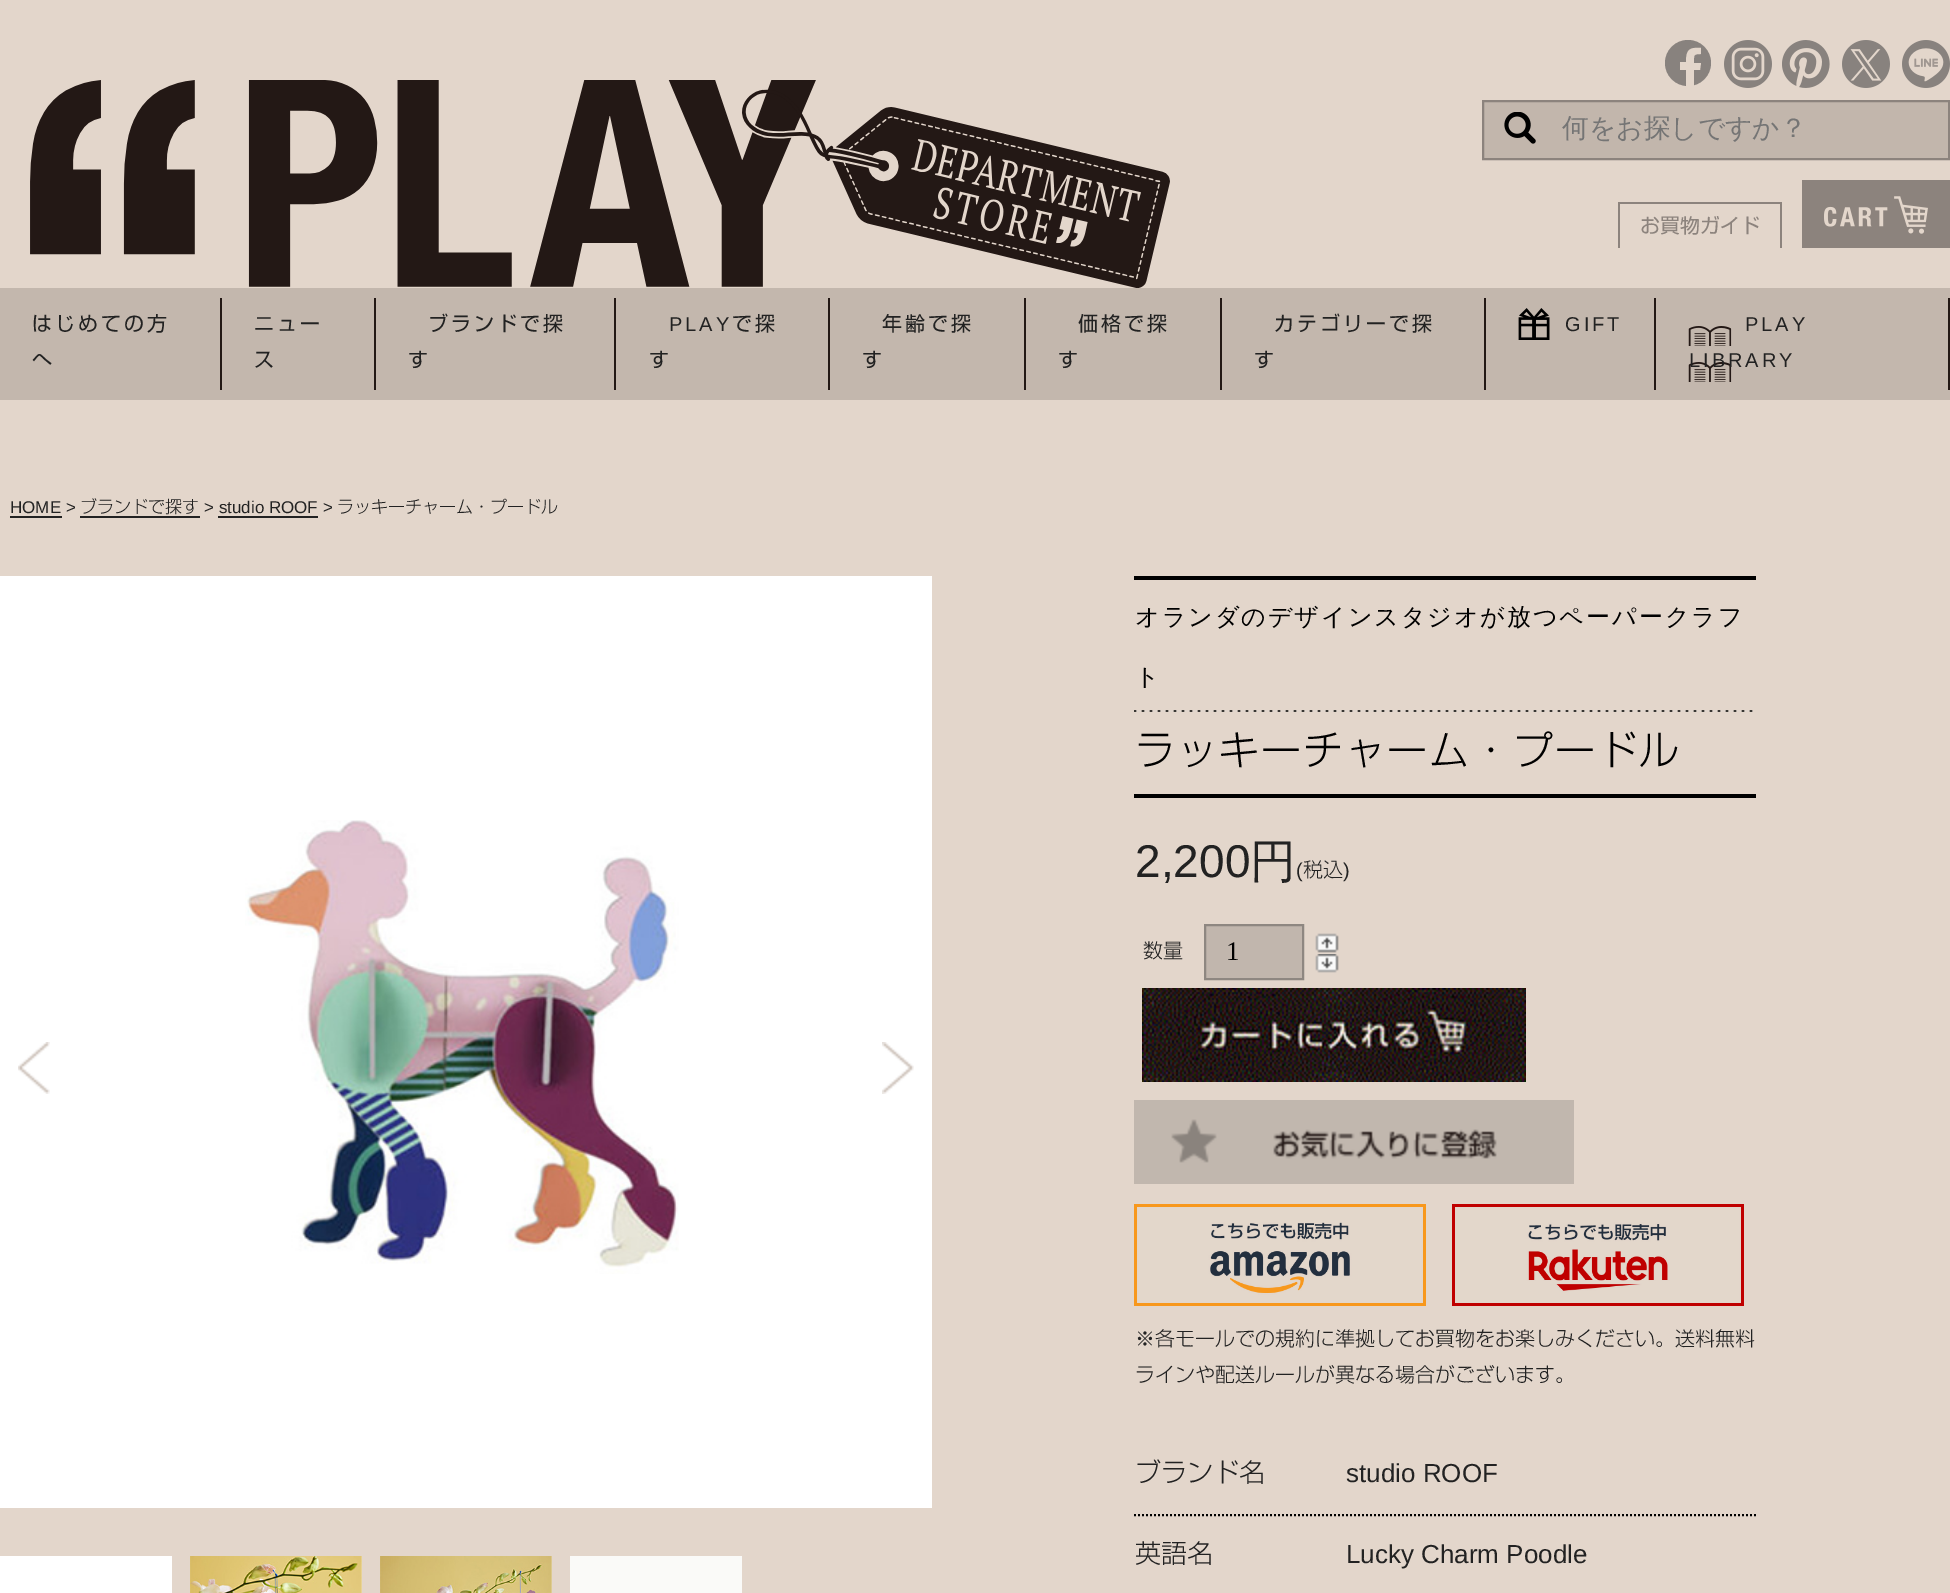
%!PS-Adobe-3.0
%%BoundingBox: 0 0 1950 1593
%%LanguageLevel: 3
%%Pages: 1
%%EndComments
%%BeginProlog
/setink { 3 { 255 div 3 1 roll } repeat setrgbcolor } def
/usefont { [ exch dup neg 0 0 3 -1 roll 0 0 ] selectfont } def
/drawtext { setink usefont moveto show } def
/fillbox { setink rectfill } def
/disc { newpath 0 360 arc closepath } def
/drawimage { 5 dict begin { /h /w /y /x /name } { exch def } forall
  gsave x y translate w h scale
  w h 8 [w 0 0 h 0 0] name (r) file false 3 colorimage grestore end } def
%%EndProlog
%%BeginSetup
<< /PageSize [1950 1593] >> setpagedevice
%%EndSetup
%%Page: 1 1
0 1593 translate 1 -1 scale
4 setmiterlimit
0 0 1950 1593 227 214 203 fillbox
(assets/img1.rgb) 30 80 1140 208 drawimage
136 130 126 setink
1688 63 23 disc fill
(assets/img2.rgb) 1724 40 48 48 drawimage
(assets/img3.rgb) 1782 40 48 48 drawimage
(assets/img4.rgb) 1842 40 48 48 drawimage
(assets/img5.rgb) 1902 40 48 48 drawimage
227 214 203 setink
1694 88 moveto 1694 70 lineto 1700 70 lineto 1701 63 lineto 1694 63 lineto 1694 55 1693 54 1701 54 curveto 1701 48 lineto 1689 47 1686 50 1686 62 curveto 1680 62 lineto 1680 70 lineto 1686 70 lineto 1686 88 lineto closepath fill
194 182 172 setink
1483 101 moveto 1949 101 lineto 1949 159 lineto 1483 159 lineto closepath gsave fill grestore
140 131 125 setink
2 setlinewidth
stroke
(assets/img6.rgb) 1504 112 32 32 drawimage
(何をお探しですか？) 1562 137 /WenQuanYiZenHei-Medium 26.75 117 117 117 drawtext
1618 202 164 2 140 131 125 fillbox
1780 202 2 46 140 131 125 fillbox
1618 202 2 46 140 131 125 fillbox
(お買物ガイド) 1640 233 /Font-Regular 20 140 131 125 drawtext
1802 180 148 68 140 131 125 fillbox
(assets/img7.rgb) 1824 196 104 38 drawimage
0 288 1950 112 195 183 173 fillbox
220 298 2 92 35 24 21 fillbox
34 34 34 setink
32 331 moveto 3 0 (はじめての方) ashow
32 367 moveto 3 0 (へ) ashow
374 298 2 92 35 24 21 fillbox
34 34 34 setink
254 331 moveto 3 0 (ニュー) ashow
254 367 moveto 3 0 (ス) ashow
614 298 2 92 35 24 21 fillbox
34 34 34 setink
428 331 moveto 3 0 (ブランドで探) ashow
408 367 moveto 3 0 (す) ashow
828 298 2 92 35 24 21 fillbox
/LiberationSans-Regular 20 usefont
34 34 34 setink
669 331 moveto 3 0 (PLAY) ashow
/Font-Regular 20 usefont
732 331 moveto 3 0 (で探) ashow
649 367 moveto 3 0 (す) ashow
1024 298 2 92 35 24 21 fillbox
34 34 34 setink
882 331 moveto 3 0 (年齢で探) ashow
862 367 moveto 3 0 (す) ashow
1220 298 2 92 35 24 21 fillbox
34 34 34 setink
1078 331 moveto 3 0 (価格で探) ashow
1058 367 moveto 3 0 (す) ashow
1484 298 2 92 35 24 21 fillbox
34 34 34 setink
1274 331 moveto 3 0 (カテゴリーで探) ashow
1254 367 moveto 3 0 (す) ashow
1654 298 2 92 35 24 21 fillbox
(assets/img8.rgb) 1518 308 32 32 drawimage
/LiberationSans-Regular 20 usefont
34 34 34 setink
1565 331 moveto 3 0 (GIFT) ashow
1948 298 2 92 35 24 21 fillbox
34 34 34 setink
1745 331 moveto 3 0 (PLAY) ashow
(assets/img9.rgb) 1688 326 44 56 drawimage
1689 367 moveto 3 0 (LIBRARY) ashow
(HOME >) 10 513 /LiberationSans-Regular 17 34 34 34 drawtext
10 516 52 2 34 34 34 fillbox
(ブランドで探す) 80 513 /Font-Light 17 34 34 34 drawtext
80 516 120 2 34 34 34 fillbox
(> studio ROOF >) 204 513 /LiberationSans-Regular 17 34 34 34 drawtext
(ラッキーチャーム・プードル) 337 513 /Font-Light 17 34 34 34 drawtext
218 516 100 2 34 34 34 fillbox
0 576 932 932 255 255 255 fillbox
(assets/img10.rgb) 245 820 434 454 drawimage
(assets/img11.rgb) 18 1042 32 52 drawimage
(assets/img12.rgb) 882 1042 32 52 drawimage
1134 576 622 4 0 0 0 fillbox
1134 794 622 4 0 0 0 fillbox
(assets/img13.rgb) 1134 710 619 2 drawimage
/WenQuanYiZenHei-Medium 24 usefont
1135 625 moveto 2 0 (オランダのデザインスタジオが放つペーパークラフ) ashow
1135 685 moveto 2 0 (ト) ashow
/Font-Light 40 usefont
1135 765 moveto 2 0 (ラッキーチャーム・プードル) ashow
(2,200) 1135 877 /LiberationSans-Regular 46 34 34 34 drawtext
(円) 1250 877 /WenQuanYiZenHei-Medium 46 34 34 34 drawtext
(\() 1296 877 /LiberationSans-Regular 20 34 34 34 drawtext
(税込) 1303 877 /Font-Light 20 34 34 34 drawtext
(\)) 1343 877 /LiberationSans-Regular 20 34 34 34 drawtext
(数量) 1143 958 /Font-Light 20 34 34 34 drawtext
193 182 173 setink
1205 925 moveto 1303 925 lineto 1303 979 lineto 1205 979 lineto closepath gsave fill grestore
142 135 129 setink
stroke
(1) 1226 960 /LiberationSerif-Regular 26.75 0 0 0 drawtext
(assets/img14.rgb) 1315 933 24 20 drawimage
(assets/img15.rgb) 1315 954 24 19 drawimage
(assets/img16.rgb) 1142 988 384 94 drawimage
(assets/img17.rgb) 1134 1100 440 84 drawimage
(assets/img18.rgb) 1134 1204 292 102 drawimage
(assets/img19.rgb) 1452 1204 292 102 drawimage
(※各モールでの規約に準拠してお買物をお楽しみください。送料無料) 1135 1346 /Font-Light 20 34 34 34 drawtext
(ラインや配送ルールが異なる場合がございます。) 1135 1382 /Font-Light 20 34 34 34 drawtext
0 0 0 setink
[2 2] 0 setdash
1134 1515 moveto 1756 1515 lineto stroke
(ブランド名) 1135 1482 /Font-Light 26 34 34 34 drawtext
(studio ROOF) 1346 1482 /LiberationSans-Regular 26 34 34 34 drawtext
(英語名) 1135 1563 /Font-Light 26 34 34 34 drawtext
(Lucky Charm Poodle) 1346 1563 /LiberationSans-Regular 26 34 34 34 drawtext
0 1556 172 37 255 255 255 fillbox
(assets/img20.rgb) 190 1556 172 37 drawimage
(assets/img21.rgb) 380 1556 172 37 drawimage
570 1556 172 37 250 250 248 fillbox
showpage
%%EOF
